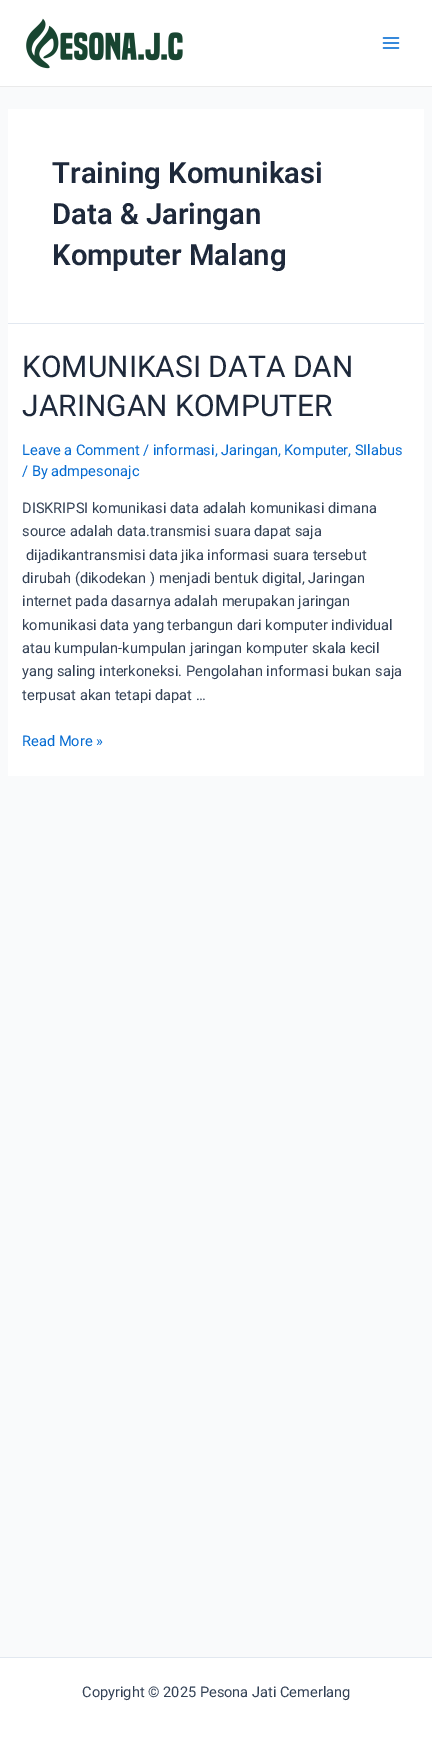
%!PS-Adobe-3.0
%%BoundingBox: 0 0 432 1737
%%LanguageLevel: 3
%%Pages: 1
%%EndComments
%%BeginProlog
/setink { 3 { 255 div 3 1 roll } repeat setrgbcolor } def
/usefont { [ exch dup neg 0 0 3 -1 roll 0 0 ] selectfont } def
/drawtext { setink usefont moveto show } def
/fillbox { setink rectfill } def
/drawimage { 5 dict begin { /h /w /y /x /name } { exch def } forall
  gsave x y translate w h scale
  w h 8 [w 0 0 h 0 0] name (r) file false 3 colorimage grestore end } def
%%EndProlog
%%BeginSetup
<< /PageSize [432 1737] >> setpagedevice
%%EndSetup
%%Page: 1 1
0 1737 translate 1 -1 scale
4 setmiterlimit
0 0 432 1737 249 250 251 fillbox
0 0 432 86 255 255 255 fillbox
0 86 432 1 234 234 234 fillbox
(assets/img1.rgb) 26 18 157 51 drawimage
(assets/img2.rgb) 382 37 18 12 drawimage
8 109 416 214 255 255 255 fillbox
8 323 416 1 226 232 240 fillbox
(Training Komunikasi) 52 183 /Roboto-SemiBold 29.25 30 41 59 drawtext
(Data & Jaringan) 52 224 /Roboto-SemiBold 29.25 30 41 59 drawtext
(Komputer Malang) 52 265 /Roboto-SemiBold 29.25 30 41 59 drawtext
8 324 416 452 255 255 255 fillbox
(KOMUNIKASI DATA DAN) 22 377 /Roboto-Regular 30 30 41 59 drawtext
(JARINGAN KOMPUTER) 22 416 /Roboto-Regular 30 30 41 59 drawtext
(Leave a Comment / informasi, Jaringan, Komputer, SIlabus) 22 455 /Roboto-Regular 14.6 4 107 210 drawtext
(/ By admpesonajc) 22 476 /Roboto-Regular 14.6 4 107 210 drawtext
(DISKRIPSI komunikasi data adalah komunikasi dimana) 22 513 /Roboto-Regular 14.6 51 65 85 drawtext
(source adalah data.transmisi suara dapat saja) 22 536 /Roboto-Regular 14.6 51 65 85 drawtext
(dijadikantransmisi data jika informasi suara tersebut) 26 560 /Roboto-Regular 14.6 51 65 85 drawtext
(dirubah \(dikodekan \) menjadi bentuk digital, Jaringan) 22 583 /Roboto-Regular 14.6 51 65 85 drawtext
(internet pada dasarnya adalah merupakan jaringan) 22 606 /Roboto-Regular 14.6 51 65 85 drawtext
(komunikasi data yang terbangun dari komputer individual) 22 630 /Roboto-Regular 14.6 51 65 85 drawtext
(atau kumpulan-kumpulan jaringan komputer skala kecil) 22 653 /Roboto-Regular 14.6 51 65 85 drawtext
(yang saling interkoneksi. Pengolahan informasi bukan saja) 22 676 /Roboto-Regular 14.6 51 65 85 drawtext
(terpusat akan tetapi dapat …) 22 700 /Roboto-Regular 14.6 51 65 85 drawtext
(Read More ») 22 746 /Roboto-Regular 14.6 4 107 210 drawtext
0 1658 432 79 255 255 255 fillbox
0 1657 432 1 226 232 240 fillbox
(Copyright © 2025 Pesona Jati Cemerlang) 82 1697 /Roboto-Regular 14.6 51 65 85 drawtext
showpage
%%EOF
